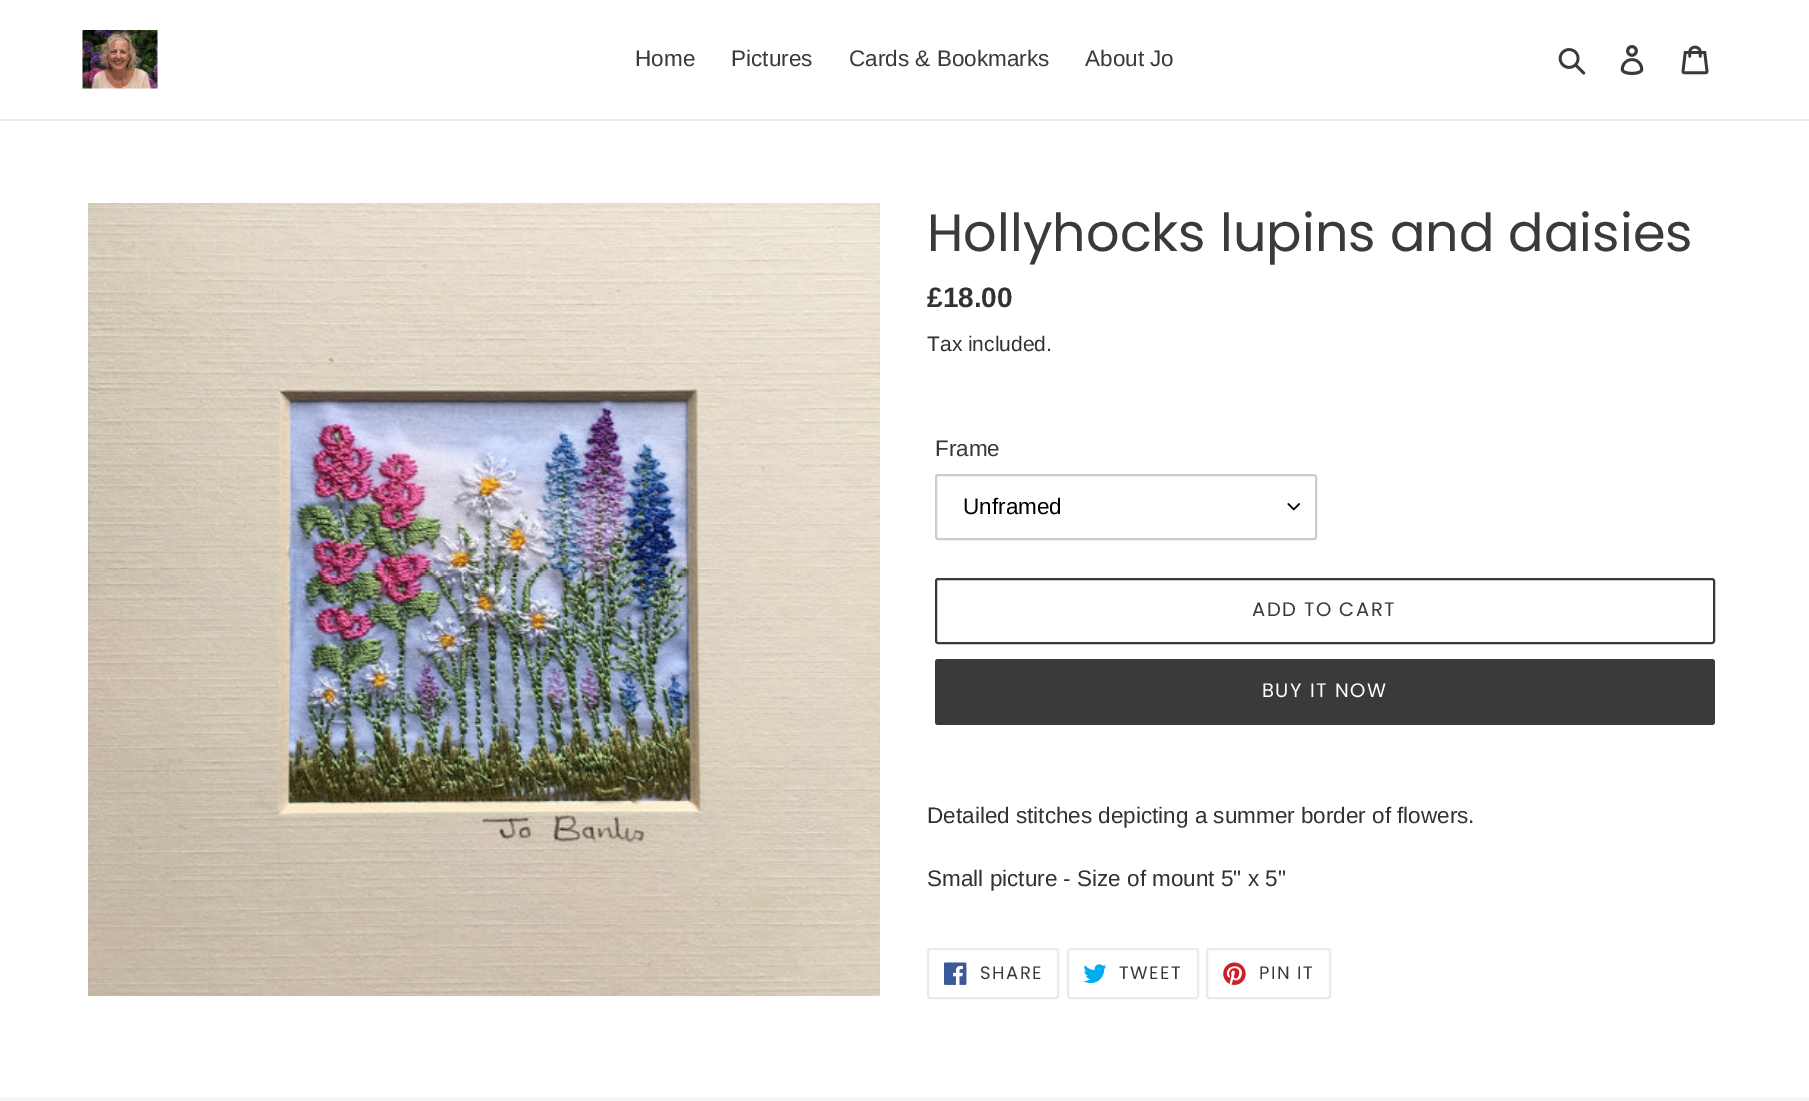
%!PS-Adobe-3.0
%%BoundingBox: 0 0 1809 1101
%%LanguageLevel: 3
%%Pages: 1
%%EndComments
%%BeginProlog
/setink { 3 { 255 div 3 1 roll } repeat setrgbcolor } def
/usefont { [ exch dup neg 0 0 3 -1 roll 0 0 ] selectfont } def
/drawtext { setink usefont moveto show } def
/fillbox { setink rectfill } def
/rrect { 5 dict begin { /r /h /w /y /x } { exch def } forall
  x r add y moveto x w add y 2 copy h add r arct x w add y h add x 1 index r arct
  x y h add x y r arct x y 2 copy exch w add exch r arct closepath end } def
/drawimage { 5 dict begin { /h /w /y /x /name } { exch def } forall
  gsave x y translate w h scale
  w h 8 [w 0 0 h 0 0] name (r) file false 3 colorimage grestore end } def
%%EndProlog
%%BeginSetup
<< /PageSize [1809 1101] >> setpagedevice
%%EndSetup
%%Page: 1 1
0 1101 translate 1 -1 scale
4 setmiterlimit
0 0 1809 1101 255 255 255 fillbox
0 119 1809 2 235 235 235 fillbox
(assets/img1.rgb) 82 30 76 59 drawimage
(Home) 635 66 /LiberationSans-Regular 22.5 58 58 58 drawtext
(Pictures) 731 66 /LiberationSans-Regular 22.5 58 58 58 drawtext
(Cards & Bookmarks) 849 66 /LiberationSans-Regular 22.5 58 58 58 drawtext
(About Jo) 1085 66 /LiberationSans-Regular 22.5 58 58 58 drawtext
(assets/img2.rgb) 1558 48 28 27 drawimage
(assets/img3.rgb) 1620 45 24 30 drawimage
(assets/img4.rgb) 1681 45 28 30 drawimage
(assets/img5.rgb) 88 203 792 793 drawimage
(Hollyhocks lupins and daisies) 927 251 /Poppins-Regular 52.5 58 58 58 drawtext
(£18.00) 927 307 /LiberationSans-Bold 28 51 50 50 drawtext
(Tax included.) 927 351 /LiberationSans-Regular 21 51 50 50 drawtext
(Frame) 935 456 /LiberationSans-Regular 22.5 58 58 58 drawtext
(assets/img6.rgb) 1287 503 13 8 drawimage
204 204 204 setink
2 setlinewidth
936 475 380 64 2 rrect stroke
(Unframed) 963 514 /LiberationSans-Regular 22.5 0 0 0 drawtext
58 58 58 setink
936 579 778 64 2 rrect stroke
/Poppins-Regular 19.5 usefont
1252 616 moveto 1.5 0 (ADD TO CART) ashow
935 659 780 66 3 rrect fill
255 255 255 setink
1262 697 moveto 1.5 0 (BUY IT NOW) ashow
(Detailed stitches depicting a summer border of flowers.) 927 823 /LiberationSans-Regular 22.5 51 50 50 drawtext
(Small picture - Size of mount 5" x 5") 927 886 /LiberationSans-Regular 22.5 51 50 50 drawtext
235 235 235 setink
928 949 130 49 2 rrect stroke
(assets/img7.rgb) 944 962 23 23 drawimage
/Poppins-Regular 18 usefont
58 58 58 setink
980 979 moveto 1.5 0 (SHARE) ashow
235 235 235 setink
1068 949 130 49 2 rrect stroke
(assets/img8.rgb) 1083 964 24 20 drawimage
58 58 58 setink
1119 979 moveto 1.5 0 (TWEET) ashow
235 235 235 setink
1207 949 123 49 2 rrect stroke
(assets/img9.rgb) 1223 962 23 23 drawimage
58 58 58 setink
1259 979 moveto 1.5 0 (PIN IT) ashow
0 1097 1809 4 246 246 246 fillbox
showpage
%%EOF
